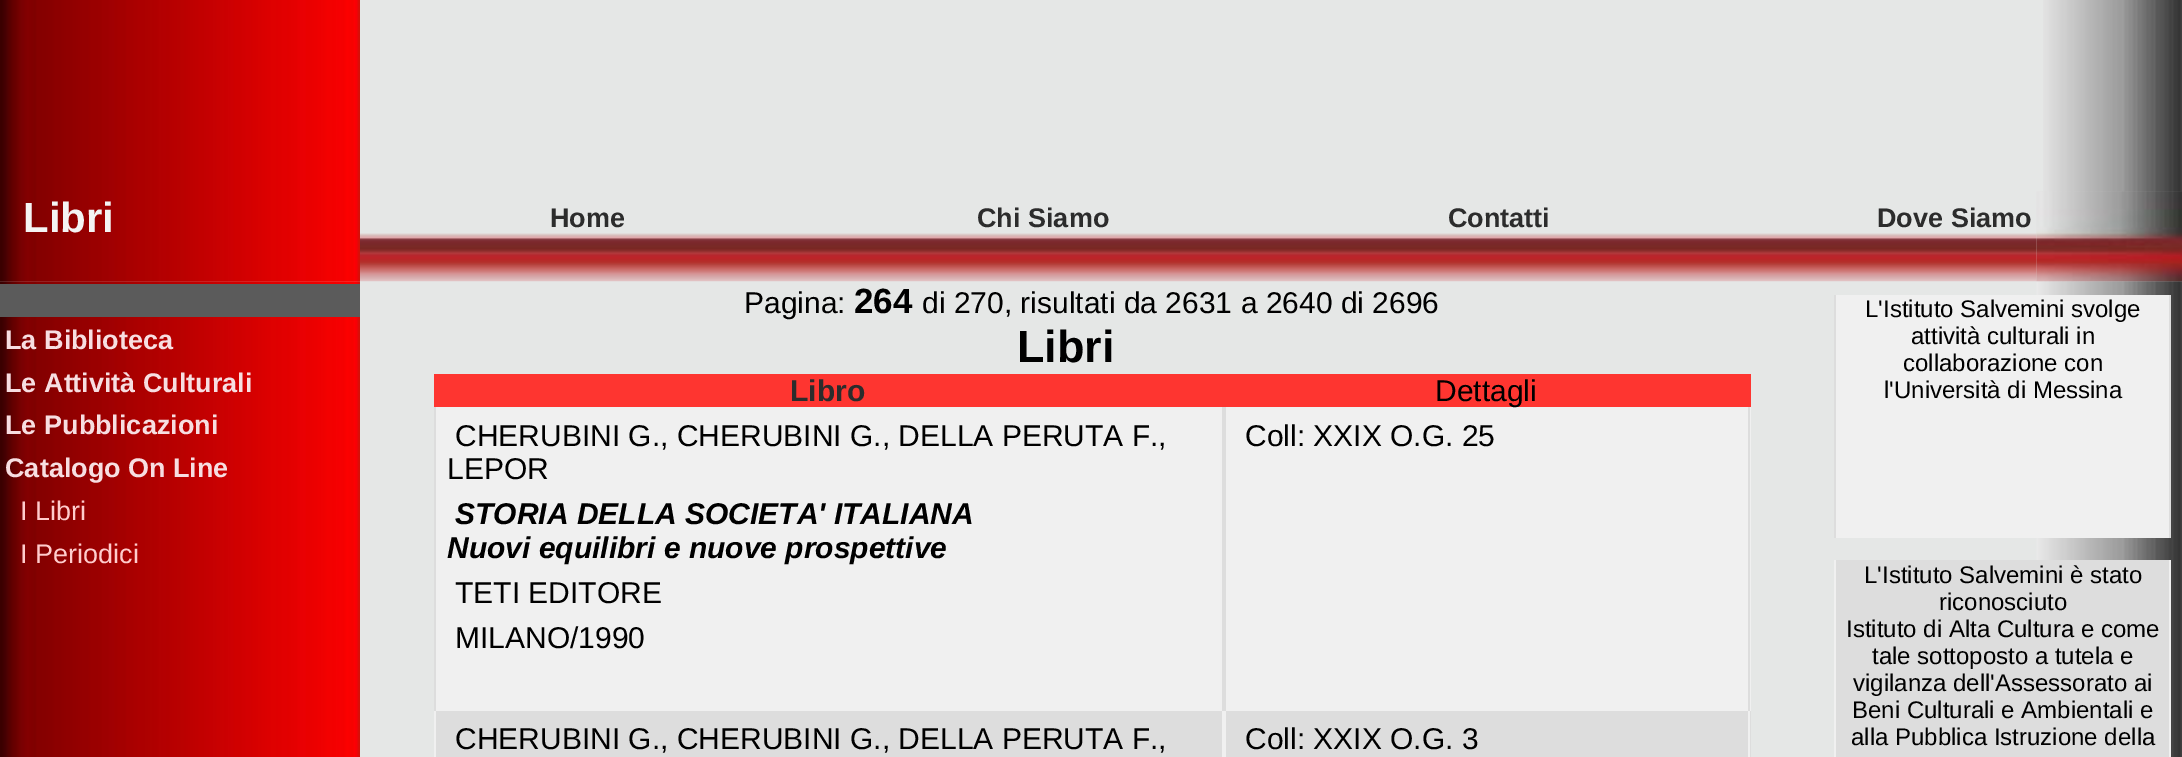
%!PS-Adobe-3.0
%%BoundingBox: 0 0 2182 757
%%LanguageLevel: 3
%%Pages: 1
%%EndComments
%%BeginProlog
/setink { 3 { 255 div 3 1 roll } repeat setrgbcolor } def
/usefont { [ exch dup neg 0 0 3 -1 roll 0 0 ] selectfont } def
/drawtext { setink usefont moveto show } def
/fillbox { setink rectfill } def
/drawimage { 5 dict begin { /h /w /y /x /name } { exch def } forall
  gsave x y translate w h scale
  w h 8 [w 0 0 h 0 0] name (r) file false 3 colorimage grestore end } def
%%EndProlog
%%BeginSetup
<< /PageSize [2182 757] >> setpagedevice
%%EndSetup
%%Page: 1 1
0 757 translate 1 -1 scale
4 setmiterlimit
0 0 2182 757 229 231 230 fillbox
(assets/img1.rgb) 0 0 360 282 drawimage
(assets/img2.rgb) 2043 0 139 192 drawimage
(assets/img3.rgb) 0 233 2182 49 drawimage
(assets/img8.rgb) 2036 281 146 476 drawimage
(assets/img4.rgb) 2036 191 146 91 drawimage
(assets/img7.rgb) 0 281 360 476 drawimage
(assets/img5.rgb) 0 233 360 49 drawimage
(Libri) 23 232 /LiberationSans-Bold 42 244 244 244 drawtext
(assets/img6.rgb) 2036 191 146 91 drawimage
(Home) 550 227 /LiberationSans-Bold 27 44 44 44 drawtext
(Chi Siamo) 977 227 /LiberationSans-Bold 27 44 44 44 drawtext
(Contatti) 1448 227 /LiberationSans-Bold 27 44 44 44 drawtext
(Dove Siamo) 1877 227 /LiberationSans-Bold 27 44 44 44 drawtext
0 284 360 33 91 91 91 fillbox
(La Biblioteca) 5 349 /LiberationSans-Bold 27 247 222 225 drawtext
(Le Attività Culturali) 5 392 /LiberationSans-Bold 27 247 222 225 drawtext
(Le Pubblicazioni) 5 434 /LiberationSans-Bold 27 247 222 225 drawtext
(Catalogo On Line) 5 477 /LiberationSans-Bold 27 247 222 225 drawtext
(I Libri) 20 520 /LiberationSans-Regular 27 255 204 204 drawtext
(I Periodici) 20 563 /LiberationSans-Regular 27 255 204 204 drawtext
(Pagina:) 744 313 /LiberationSans-Regular 30 0 0 0 drawtext
(264) 854 313 /LiberationSans-Bold 35 0 0 0 drawtext
(di 270, risultati da 2631 a 2640 di 2696) 922 313 /LiberationSans-Regular 30 0 0 0 drawtext
(Libri) 1017 362 /LiberationSans-Bold 45 0 0 0 drawtext
434 374 1317 33 254 53 48 fillbox
(Libro) 790 401 /LiberationSans-Bold 30 44 44 44 drawtext
1226 407 525 304 240 240 240 fillbox
(Dettagli) 1435 401 /LiberationSans-Regular 30 0 0 0 drawtext
436 407 786 304 240 240 240 fillbox
1222 407 4 304 221 221 221 fillbox
434 407 2 304 221 221 221 fillbox
(CHERUBINI G., CHERUBINI G., DELLA PERUTA F.,) 455 446 /LiberationSans-Regular 30 0 0 0 drawtext
(LEPOR) 447 479 /LiberationSans-Regular 30 0 0 0 drawtext
(STORIA DELLA SOCIETA' ITALIANA) 455 524 /LiberationSans-BoldItalic 30 0 0 0 drawtext
(Nuovi equilibri e nuove prospettive) 447 558 /LiberationSans-BoldItalic 30 0 0 0 drawtext
(TETI EDITORE) 455 603 /LiberationSans-Regular 30 0 0 0 drawtext
(MILANO/1990) 455 648 /LiberationSans-Regular 30 0 0 0 drawtext
1748 407 2 304 221 221 221 fillbox
(Coll: XXIX O.G. 25) 1245 446 /LiberationSans-Regular 30 0 0 0 drawtext
436 711 786 46 221 221 221 fillbox
1222 711 4 46 240 240 240 fillbox
434 711 2 46 240 240 240 fillbox
(CHERUBINI G., CHERUBINI G., DELLA PERUTA F.,) 455 749 /LiberationSans-Regular 30 0 0 0 drawtext
1226 711 525 46 221 221 221 fillbox
1748 711 2 46 240 240 240 fillbox
(Coll: XXIX O.G. 3) 1245 749 /LiberationSans-Regular 30 0 0 0 drawtext
1836 295 333 243 240 240 240 fillbox
2169 295 2 243 221 221 221 fillbox
1834 295 2 243 221 221 221 fillbox
(L'Istituto Salvemini svolge) 1865 317 /LiberationSans-Regular 24 0 0 0 drawtext
(attività culturali in) 1911 344 /LiberationSans-Regular 24 0 0 0 drawtext
(collaborazione con) 1903 371 /LiberationSans-Regular 24 0 0 0 drawtext
(l'Università di Messina) 1884 398 /LiberationSans-Regular 24 0 0 0 drawtext
1836 560 333 197 221 221 221 fillbox
2169 560 2 197 240 240 240 fillbox
1834 560 2 197 240 240 240 fillbox
(L'Istituto Salvemini è stato) 1864 583 /LiberationSans-Regular 24 0 0 0 drawtext
(riconosciuto) 1939 610 /LiberationSans-Regular 24 0 0 0 drawtext
(Istituto di Alta Cultura e come) 1846 637 /LiberationSans-Regular 24 0 0 0 drawtext
(tale sottoposto a tutela e) 1872 664 /LiberationSans-Regular 24 0 0 0 drawtext
(vigilanza dell'Assessorato ai) 1853 691 /LiberationSans-Regular 24 0 0 0 drawtext
(Beni Culturali e Ambientali e) 1852 718 /LiberationSans-Regular 24 0 0 0 drawtext
(alla Pubblica Istruzione della) 1851 745 /LiberationSans-Regular 24 0 0 0 drawtext
showpage
%%EOF
